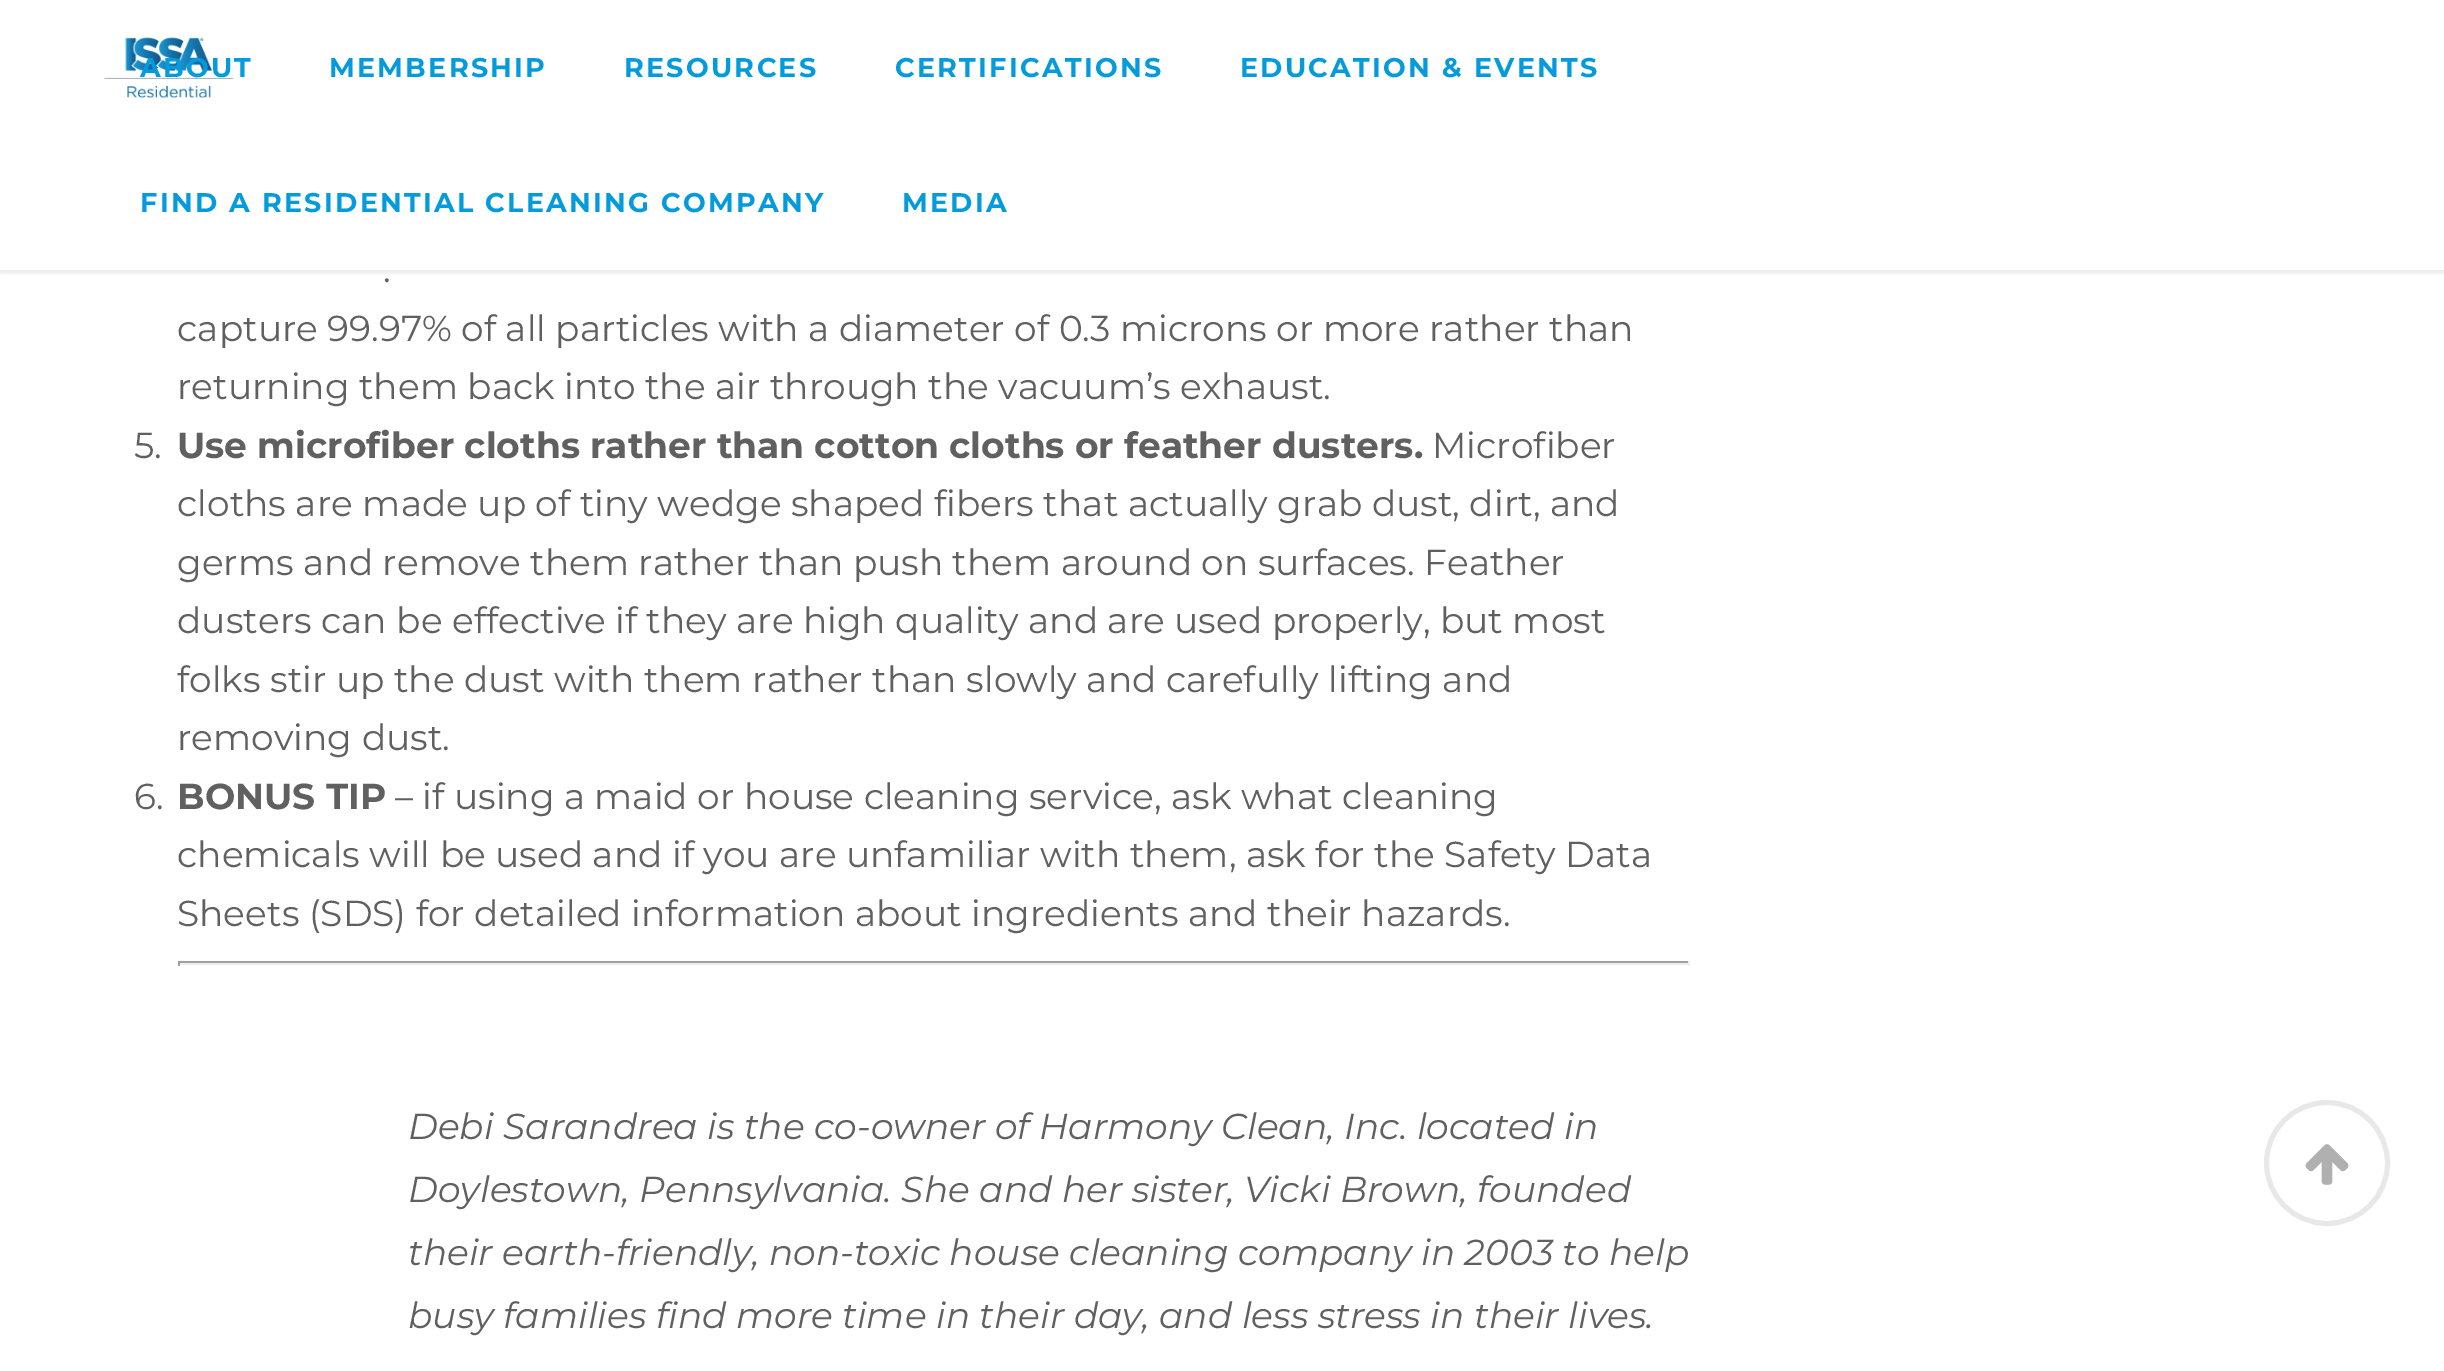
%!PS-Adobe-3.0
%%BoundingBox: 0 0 2444 1371
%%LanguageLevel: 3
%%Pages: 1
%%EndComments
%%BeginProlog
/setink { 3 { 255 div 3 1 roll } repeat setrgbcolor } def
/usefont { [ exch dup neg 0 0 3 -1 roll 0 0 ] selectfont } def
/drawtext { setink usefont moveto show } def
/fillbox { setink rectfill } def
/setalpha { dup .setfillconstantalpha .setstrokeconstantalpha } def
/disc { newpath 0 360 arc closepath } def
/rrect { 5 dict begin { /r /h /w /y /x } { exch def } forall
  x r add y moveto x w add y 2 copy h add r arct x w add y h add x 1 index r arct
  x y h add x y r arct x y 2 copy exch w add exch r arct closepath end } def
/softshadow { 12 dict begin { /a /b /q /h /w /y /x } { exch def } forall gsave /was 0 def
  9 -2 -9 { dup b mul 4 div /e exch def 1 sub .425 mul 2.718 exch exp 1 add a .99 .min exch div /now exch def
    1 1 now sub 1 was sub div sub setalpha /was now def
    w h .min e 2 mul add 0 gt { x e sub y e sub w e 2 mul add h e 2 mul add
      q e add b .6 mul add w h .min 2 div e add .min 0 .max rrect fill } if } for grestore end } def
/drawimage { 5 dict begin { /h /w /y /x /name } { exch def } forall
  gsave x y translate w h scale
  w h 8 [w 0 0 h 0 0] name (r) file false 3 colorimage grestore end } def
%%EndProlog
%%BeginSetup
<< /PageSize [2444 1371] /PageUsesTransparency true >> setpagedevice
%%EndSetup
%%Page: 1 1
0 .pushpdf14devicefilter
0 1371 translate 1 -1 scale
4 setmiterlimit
0 0 2444 1371 255 255 255 fillbox
gsave
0 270 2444 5 rectclip
0 0 0 setink
0 2 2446 270 0 3.5 0.11 softshadow
grestore
(assets/img1.rgb) 104 37 130 61 drawimage
/Montserrat-Bold 27 usefont
4 155 221 setink
140 77 moveto 2.25 0 (ABOUT) ashow
329 77 moveto 2.25 0 (MEMBERSHIP) ashow
624 77 moveto 2.25 0 (RESOURCES) ashow
895 77 moveto 2.25 0 (CERTIFICATIONS) ashow
1240 77 moveto 2.25 0 (EDUCATION & EVENTS) ashow
140 212 moveto 2.25 0 (FIND A RESIDENTIAL CLEANING COMPANY) ashow
902 212 moveto 2.25 0 (MEDIA) ashow
(.) 383 282 /Montserrat-Regular 36 96 96 96 drawtext
(capture 99.97% of all particles with a diameter of 0.3 microns or more rather than) 177 341 /Montserrat-Regular 36 96 96 96 drawtext
(returning them back into the air through the vacuum’s exhaust.) 177 399 /Montserrat-Regular 36 96 96 96 drawtext
(5.) 134 458 /Montserrat-Regular 36 96 96 96 drawtext
(Use microfiber cloths rather than cotton cloths or feather dusters.) 177 458 /Montserrat-Bold 36 96 96 96 drawtext
(Microfiber) 1432 458 /Montserrat-Regular 36 96 96 96 drawtext
(cloths are made up of tiny wedge shaped fibers that actually grab dust, dirt, and) 177 516 /Montserrat-Regular 36 96 96 96 drawtext
(germs and remove them rather than push them around on surfaces. Feather) 177 575 /Montserrat-Regular 36 96 96 96 drawtext
(dusters can be effective if they are high quality and are used properly, but most) 177 633 /Montserrat-Regular 36 96 96 96 drawtext
(folks stir up the dust with them rather than slowly and carefully lifting and) 177 692 /Montserrat-Regular 36 96 96 96 drawtext
(removing dust.) 177 750 /Montserrat-Regular 36 96 96 96 drawtext
(6.) 134 809 /Montserrat-Regular 36 96 96 96 drawtext
(BONUS TIP) 177 809 /Montserrat-Bold 36 96 96 96 drawtext
(– if using a maid or house cleaning service, ask what cleaning) 395 809 /Montserrat-Regular 36 96 96 96 drawtext
(chemicals will be used and if you are unfamiliar with them, ask for the Safety Data) 177 867 /Montserrat-Regular 36 96 96 96 drawtext
(Sheets \(SDS\) for detailed information about ingredients and their hazards.) 177 926 /Montserrat-Regular 36 96 96 96 drawtext
178 961 1512 2 159 159 159 fillbox
1688 961 2 5 238 238 238 fillbox
178 963 1512 2 238 238 238 fillbox
178 961 2 5 159 159 159 fillbox
(Debi Sarandrea is the co-owner of Harmony Clean, Inc. located in) 408 1139 /Montserrat-Italic 36 96 96 96 drawtext
(Doylestown, Pennsylvania. She and her sister, Vicki Brown, founded) 408 1202 /Montserrat-Italic 36 96 96 96 drawtext
(their earth-friendly, non-toxic house cleaning company in 2003 to help) 408 1265 /Montserrat-Italic 36 96 96 96 drawtext
(busy families find more time in their day, and less stress in their lives.) 408 1328 /Montserrat-Italic 36 96 96 96 drawtext
232 232 232 setink
5 setlinewidth
2327 1163 60.5 disc stroke
(assets/img2.rgb) 2305 1144 44 41 drawimage
.poppdf14devicefilter showpage
%%EOF
